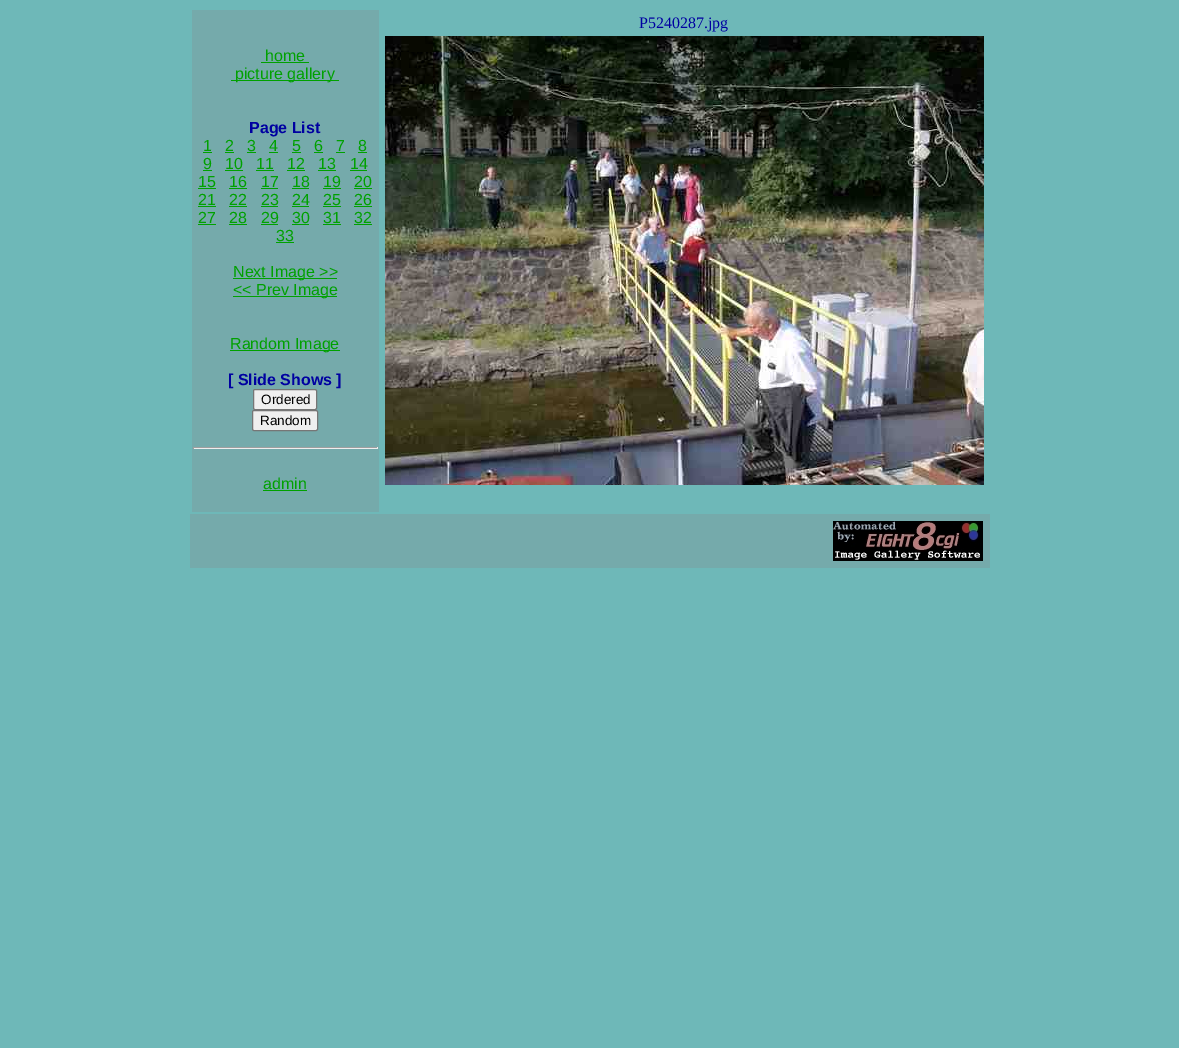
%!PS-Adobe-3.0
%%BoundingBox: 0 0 1179 1048
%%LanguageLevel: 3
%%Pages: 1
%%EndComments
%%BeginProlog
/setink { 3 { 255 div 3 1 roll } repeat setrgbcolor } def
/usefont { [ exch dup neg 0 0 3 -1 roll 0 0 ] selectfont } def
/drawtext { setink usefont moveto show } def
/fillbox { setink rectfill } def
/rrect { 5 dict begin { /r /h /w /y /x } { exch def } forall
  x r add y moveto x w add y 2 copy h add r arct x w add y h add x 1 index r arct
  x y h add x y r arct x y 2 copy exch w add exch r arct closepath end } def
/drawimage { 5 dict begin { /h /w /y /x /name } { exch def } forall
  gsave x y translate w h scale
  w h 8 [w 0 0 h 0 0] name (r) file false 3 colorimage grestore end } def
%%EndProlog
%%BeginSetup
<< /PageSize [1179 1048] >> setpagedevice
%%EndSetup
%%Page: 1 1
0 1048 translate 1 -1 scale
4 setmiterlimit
0 0 1179 1048 110 184 184 fillbox
(P5240287.jpg) 639 28 /LiberationSerif-Regular 16 0 0 161 drawtext
(assets/img1.rgb) 385 36 599 449 drawimage
192 10 187 502 117 170 171 fillbox
(home) 265 61 /LiberationSans-Regular 16 0 161 0 drawtext
261 62 48 1 0 161 0 fillbox
231 80 108 1 0 161 0 fillbox
(picture gallery) 235 79 /LiberationSans-Regular 16 0 161 0 drawtext
(Page List) 249 133 /LiberationSans-Bold 16 0 0 161 drawtext
(1) 203 151 /LiberationSans-Regular 16 0 161 0 drawtext
203 152 9 1 0 161 0 fillbox
(2) 225 151 /LiberationSans-Regular 16 0 161 0 drawtext
225 152 9 1 0 161 0 fillbox
(3) 247 151 /LiberationSans-Regular 16 0 161 0 drawtext
247 152 9 1 0 161 0 fillbox
(4) 269 151 /LiberationSans-Regular 16 0 161 0 drawtext
269 152 9 1 0 161 0 fillbox
(5) 292 151 /LiberationSans-Regular 16 0 161 0 drawtext
292 152 9 1 0 161 0 fillbox
(6) 314 151 /LiberationSans-Regular 16 0 161 0 drawtext
314 152 9 1 0 161 0 fillbox
(7) 336 151 /LiberationSans-Regular 16 0 161 0 drawtext
336 152 9 1 0 161 0 fillbox
(8) 358 151 /LiberationSans-Regular 16 0 161 0 drawtext
358 152 9 1 0 161 0 fillbox
(9) 203 169 /LiberationSans-Regular 16 0 161 0 drawtext
203 170 9 1 0 161 0 fillbox
(10) 225 169 /LiberationSans-Regular 16 0 161 0 drawtext
225 170 18 1 0 161 0 fillbox
(11) 256 169 /LiberationSans-Regular 16 0 161 0 drawtext
256 170 18 1 0 161 0 fillbox
(12) 287 169 /LiberationSans-Regular 16 0 161 0 drawtext
287 170 18 1 0 161 0 fillbox
(13) 318 169 /LiberationSans-Regular 16 0 161 0 drawtext
318 170 18 1 0 161 0 fillbox
(14) 350 169 /LiberationSans-Regular 16 0 161 0 drawtext
350 170 17 1 0 161 0 fillbox
(15) 198 187 /LiberationSans-Regular 16 0 161 0 drawtext
198 188 18 1 0 161 0 fillbox
(16) 229 187 /LiberationSans-Regular 16 0 161 0 drawtext
229 188 18 1 0 161 0 fillbox
(17) 261 187 /LiberationSans-Regular 16 0 161 0 drawtext
261 188 17 1 0 161 0 fillbox
(18) 292 187 /LiberationSans-Regular 16 0 161 0 drawtext
292 188 17 1 0 161 0 fillbox
(19) 323 187 /LiberationSans-Regular 16 0 161 0 drawtext
323 188 18 1 0 161 0 fillbox
(20) 354 187 /LiberationSans-Regular 16 0 161 0 drawtext
354 188 18 1 0 161 0 fillbox
(21) 198 205 /LiberationSans-Regular 16 0 161 0 drawtext
198 206 18 1 0 161 0 fillbox
(22) 229 205 /LiberationSans-Regular 16 0 161 0 drawtext
229 206 18 1 0 161 0 fillbox
(23) 261 205 /LiberationSans-Regular 16 0 161 0 drawtext
261 206 17 1 0 161 0 fillbox
(24) 292 205 /LiberationSans-Regular 16 0 161 0 drawtext
292 206 17 1 0 161 0 fillbox
(25) 323 205 /LiberationSans-Regular 16 0 161 0 drawtext
323 206 18 1 0 161 0 fillbox
(26) 354 205 /LiberationSans-Regular 16 0 161 0 drawtext
354 206 18 1 0 161 0 fillbox
(27) 198 223 /LiberationSans-Regular 16 0 161 0 drawtext
198 224 18 1 0 161 0 fillbox
(28) 229 223 /LiberationSans-Regular 16 0 161 0 drawtext
229 224 18 1 0 161 0 fillbox
(29) 261 223 /LiberationSans-Regular 16 0 161 0 drawtext
261 224 17 1 0 161 0 fillbox
(30) 292 223 /LiberationSans-Regular 16 0 161 0 drawtext
292 224 17 1 0 161 0 fillbox
(31) 323 223 /LiberationSans-Regular 16 0 161 0 drawtext
323 224 18 1 0 161 0 fillbox
(32) 354 223 /LiberationSans-Regular 16 0 161 0 drawtext
354 224 18 1 0 161 0 fillbox
(33) 276 241 /LiberationSans-Regular 16 0 161 0 drawtext
276 242 18 1 0 161 0 fillbox
233 278 104 1 0 161 0 fillbox
(Next Image >>) 233 277 /LiberationSans-Regular 16 0 161 0 drawtext
233 296 104 1 0 161 0 fillbox
(<< Prev Image) 233 295 /LiberationSans-Regular 16 0 161 0 drawtext
230 350 110 1 0 161 0 fillbox
(Random Image) 230 349 /LiberationSans-Regular 16 0 161 0 drawtext
([ Slide Shows ]) 228 385 /LiberationSans-Bold 16 0 0 161 drawtext
239 239 239 setink
253.5 389.5 63 20 1.5 rrect gsave fill grestore
118 118 118 setink
stroke
(Ordered) 261 404 /LiberationSans-Regular 13.5 0 0 0 drawtext
239 239 239 setink
252.5 410.5 65 20 1.5 rrect gsave fill grestore
118 118 118 setink
stroke
(Random) 260 425 /LiberationSans-Regular 13.5 0 0 0 drawtext
193 447 185 1 159 159 159 fillbox
377 447 1 2 238 238 238 fillbox
193 448 185 1 238 238 238 fillbox
193 447 1 2 159 159 159 fillbox
(admin) 263 489 /LiberationSans-Regular 16 0 161 0 drawtext
263 490 44 1 0 161 0 fillbox
190 514 800 54 117 170 171 fillbox
(assets/img2.rgb) 833 521 150 40 drawimage
showpage
%%EOF
